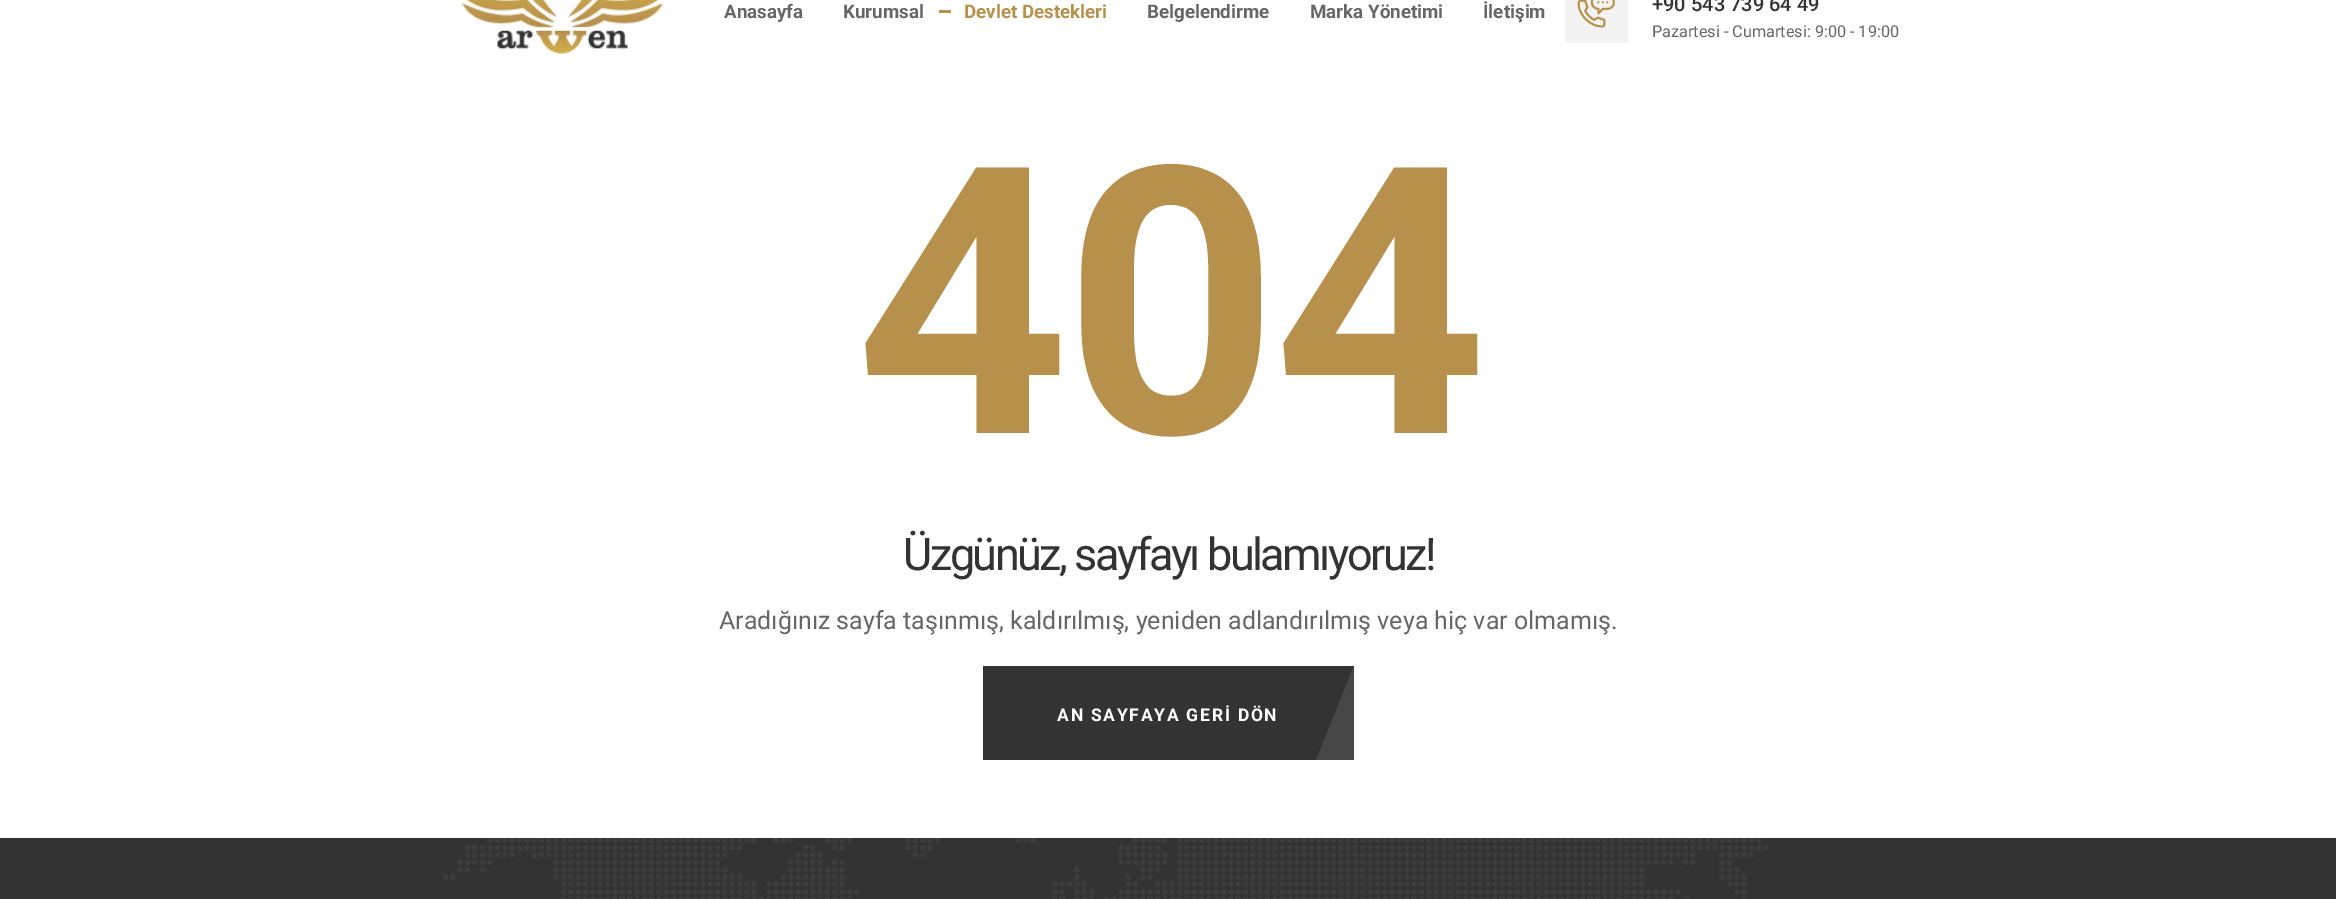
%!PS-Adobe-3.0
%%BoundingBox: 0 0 2336 899
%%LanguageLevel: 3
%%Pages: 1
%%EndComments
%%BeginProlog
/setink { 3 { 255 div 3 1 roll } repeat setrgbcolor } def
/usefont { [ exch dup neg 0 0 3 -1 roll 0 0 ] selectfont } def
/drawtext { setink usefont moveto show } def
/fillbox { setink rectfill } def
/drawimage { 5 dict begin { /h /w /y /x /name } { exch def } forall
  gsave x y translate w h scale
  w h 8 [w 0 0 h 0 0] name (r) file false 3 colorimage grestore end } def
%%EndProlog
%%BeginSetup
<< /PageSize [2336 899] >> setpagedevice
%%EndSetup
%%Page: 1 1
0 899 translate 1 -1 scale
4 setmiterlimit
0 0 2336 899 255 255 255 fillbox
(assets/img1.rgb) 462 0 201 54 drawimage
(Anasayfa) 724 18 /Roboto-Bold 18.75 102 102 102 drawtext
(Kurumsal) 843 18 /Roboto-Bold 18.75 102 102 102 drawtext
939 10 12 3 183 144 76 fillbox
(Devlet Destekleri) 964 18 /Roboto-Bold 18.75 183 144 76 drawtext
(Belgelendirme) 1147 18 /Roboto-Bold 18.75 102 102 102 drawtext
(Marka Yönetimi) 1310 18 /Roboto-Bold 18.75 102 102 102 drawtext
(İletişim) 1483 18 /Roboto-Bold 18.75 102 102 102 drawtext
1565 0 63 43 243 243 243 fillbox
(assets/img2.rgb) 1577 0 38 28 drawimage
(+90 543 739 64 49) 1652 11 /Roboto-Medium 20 51 51 51 drawtext
(Pazartesi - Cumartesi: 9:00 - 19:00) 1652 37 /Roboto-Regular 16.25 102 102 102 drawtext
/Roboto-Bold 375 usefont
183 144 76 setink
855 433 moveto -6 0 (404) ashow
/Roboto-Regular 45 usefont
51 51 51 setink
903 570 moveto -2.5 0 (Üzgünüz, sayfayı bulamıyoruz!) ashow
(Aradığınız sayfa taşınmış, kaldırılmış, yeniden adlandırılmış veya hiç var olmamış.) 719 629 /Roboto-Regular 25 102 102 102 drawtext
983 666 371 94 51 51 51 fillbox
/Roboto-Bold 17.5 usefont
255 255 255 setink
1057 721 moveto 1.75 0 (AN SAYFAYA GERİ DÖN) ashow
gsave
983 666 371 94 rectclip
71 71 71 setink
1354 666 moveto 1392 666 lineto 1354 760 lineto 1316 760 lineto closepath fill
grestore
0 838 2336 61 51 51 51 fillbox
(assets/img3.rgb) 443 838 1326 61 drawimage
showpage
%%EOF
